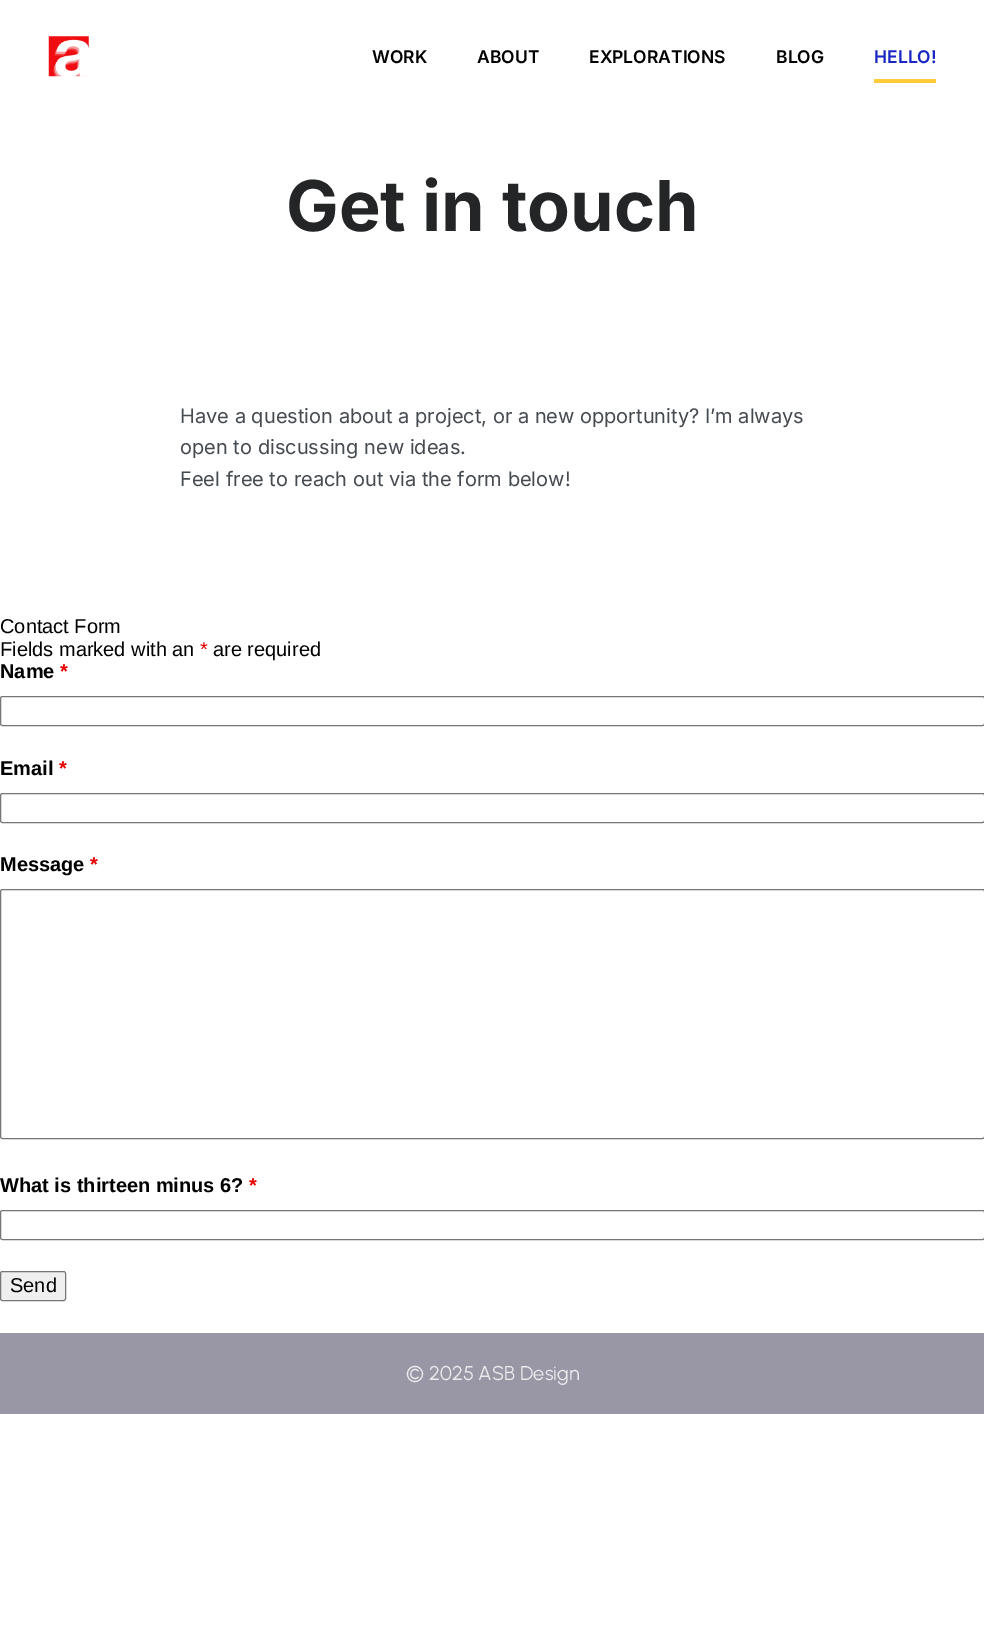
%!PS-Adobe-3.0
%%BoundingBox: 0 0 984 1625
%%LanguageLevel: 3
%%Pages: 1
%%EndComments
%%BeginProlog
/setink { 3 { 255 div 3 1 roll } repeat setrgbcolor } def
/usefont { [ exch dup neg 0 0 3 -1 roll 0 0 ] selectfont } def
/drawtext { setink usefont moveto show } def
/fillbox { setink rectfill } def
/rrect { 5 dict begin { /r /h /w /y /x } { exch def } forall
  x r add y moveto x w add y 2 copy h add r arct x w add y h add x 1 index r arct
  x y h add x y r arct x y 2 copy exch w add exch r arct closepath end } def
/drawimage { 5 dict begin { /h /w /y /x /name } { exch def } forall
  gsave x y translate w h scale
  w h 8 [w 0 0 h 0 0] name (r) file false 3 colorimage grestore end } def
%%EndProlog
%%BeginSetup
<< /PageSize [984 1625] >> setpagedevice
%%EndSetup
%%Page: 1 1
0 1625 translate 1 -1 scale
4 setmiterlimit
0 0 984 1625 255 255 255 fillbox
(assets/img1.rgb) 48 36 41 41 drawimage
(WORK) 372 63 /Inter-SemiBold 17.5 0 0 0 drawtext
(ABOUT) 477 63 /Inter-SemiBold 17.5 0 0 0 drawtext
(EXPLORATIONS) 589 63 /Inter-SemiBold 17.5 0 0 0 drawtext
(BLOG) 776 63 /Inter-SemiBold 17.5 0 0 0 drawtext
(HELLO!) 874 63 /Inter-SemiBold 17.5 26 37 197 drawtext
874 79 62 4 255 203 58 fillbox
(Get in touch) 286 231 /Inter-Bold 70 36 37 38 drawtext
(Have a question about a project, or a new opportunity? I’m always) 180 423 /Inter-Regular 20 69 75 81 drawtext
(open to discussing new ideas.) 180 454 /Inter-Regular 20 69 75 81 drawtext
(Feel free to reach out via the form below!) 180 486 /Inter-Regular 20 69 75 81 drawtext
(Contact Form) 0 633 /LiberationSans-Regular 20 0 0 0 drawtext
(Fields marked with an) 0 656 /LiberationSans-Regular 20 0 0 0 drawtext
(*) 200 656 /LiberationSans-Regular 20 232 0 0 drawtext
(are required) 213 656 /LiberationSans-Regular 20 0 0 0 drawtext
(Name) 0 678 /LiberationSans-Bold 20 0 0 0 drawtext
(*) 60 678 /LiberationSans-Bold 20 232 0 0 drawtext
118 118 118 setink
0.5 696.5 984 29 2 rrect stroke
(Email) 0 775 /LiberationSans-Bold 20 0 0 0 drawtext
(*) 59 775 /LiberationSans-Bold 20 232 0 0 drawtext
118 118 118 setink
0.5 793.5 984 29 2 rrect stroke
(Message) 0 871 /LiberationSans-Bold 20 0 0 0 drawtext
(*) 90 871 /LiberationSans-Bold 20 232 0 0 drawtext
118 118 118 setink
0.5 889.5 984 249 2 rrect stroke
(What is thirteen minus 6?) 0 1192 /LiberationSans-Bold 20 0 0 0 drawtext
(*) 249 1192 /LiberationSans-Bold 20 232 0 0 drawtext
118 118 118 setink
0.5 1210.5 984 29 2 rrect stroke
239 239 239 setink
0.5 1271.5 65 29 2 rrect gsave fill grestore
118 118 118 setink
stroke
(Send) 10 1292 /LiberationSans-Regular 20 0 0 0 drawtext
0 1333 984 81 153 151 166 fillbox
(© 2025 ASB Design) 406 1380 /Urbanist-Regular 20 235 234 237 drawtext
showpage
%%EOF
